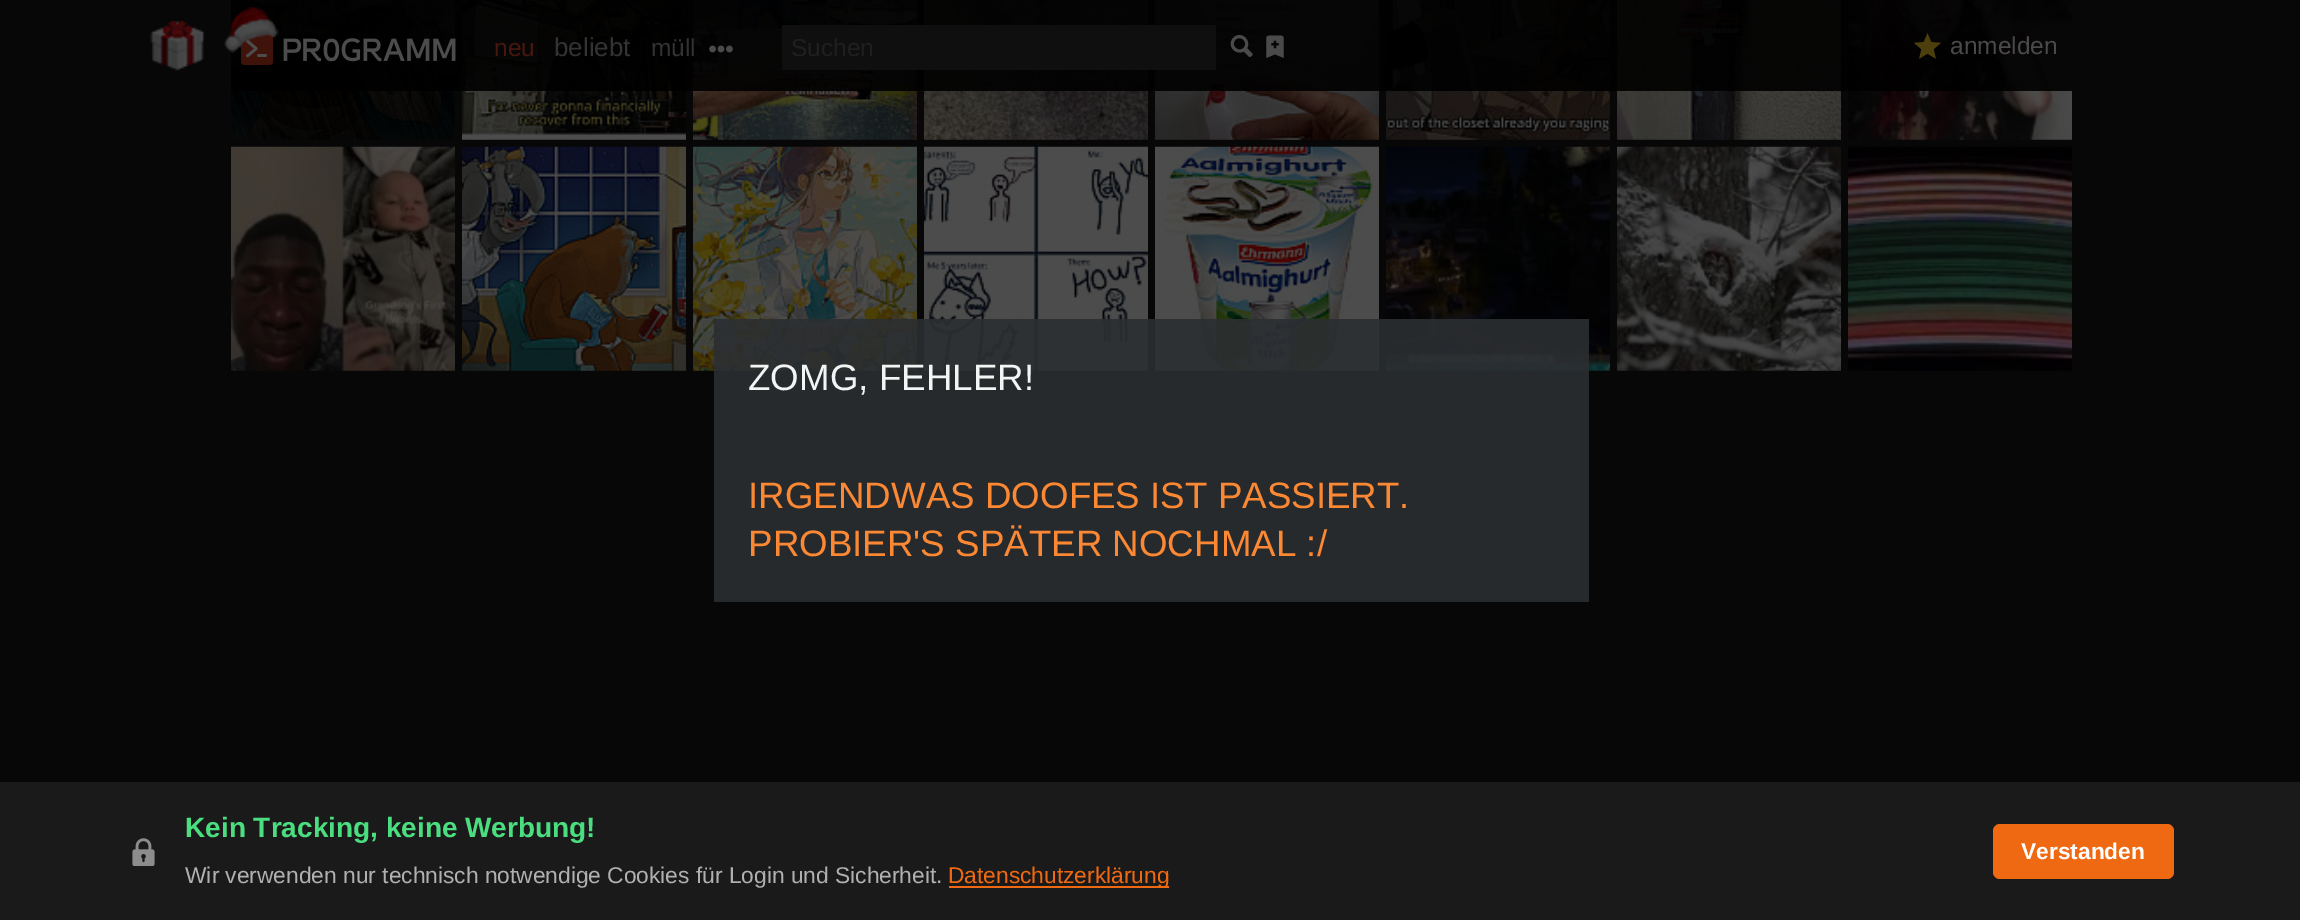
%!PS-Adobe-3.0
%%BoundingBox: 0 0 2300 920
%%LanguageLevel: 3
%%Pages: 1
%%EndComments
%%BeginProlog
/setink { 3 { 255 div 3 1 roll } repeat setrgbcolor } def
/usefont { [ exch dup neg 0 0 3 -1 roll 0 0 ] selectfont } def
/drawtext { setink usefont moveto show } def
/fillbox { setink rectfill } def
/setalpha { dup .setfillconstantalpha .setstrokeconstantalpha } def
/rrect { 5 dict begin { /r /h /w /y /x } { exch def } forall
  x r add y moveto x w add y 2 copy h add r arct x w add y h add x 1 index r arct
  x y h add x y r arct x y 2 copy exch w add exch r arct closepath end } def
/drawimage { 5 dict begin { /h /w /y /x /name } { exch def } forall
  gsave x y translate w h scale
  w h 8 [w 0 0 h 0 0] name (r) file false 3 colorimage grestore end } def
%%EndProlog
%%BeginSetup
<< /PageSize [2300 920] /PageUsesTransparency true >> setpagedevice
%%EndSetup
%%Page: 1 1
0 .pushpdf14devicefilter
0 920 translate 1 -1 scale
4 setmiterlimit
0 0 2300 920 7 7 7 fillbox
(assets/img1.rgb) 231 0 224 140 drawimage
(assets/img2.rgb) 462 0 224 140 drawimage
(assets/img3.rgb) 693 0 224 140 drawimage
(assets/img4.rgb) 924 0 224 140 drawimage
(assets/img5.rgb) 1155 0 224 140 drawimage
(assets/img6.rgb) 1386 0 224 140 drawimage
(assets/img7.rgb) 1617 0 224 140 drawimage
(assets/img8.rgb) 1848 0 224 140 drawimage
(assets/img9.rgb) 231 146 224 225 drawimage
(assets/img10.rgb) 462 146 224 225 drawimage
(assets/img11.rgb) 693 146 224 225 drawimage
(assets/img12.rgb) 924 146 224 225 drawimage
(assets/img13.rgb) 1155 146 224 225 drawimage
(assets/img14.rgb) 1386 146 224 225 drawimage
(assets/img15.rgb) 1617 146 224 225 drawimage
(assets/img16.rgb) 1848 146 224 225 drawimage
0.9 setalpha
231 0 1841 91 0 0 0 fillbox
1 setalpha
(assets/img17.rgb) 150 21 55 50 drawimage
(assets/img19.rgb) 241 33 215 32 drawimage
(assets/img18.rgb) 223 7 56 46 drawimage
(U) 1911 61 /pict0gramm-Regular 33 76 62 13 drawtext
(anmelden) 1950 54 /LiberationSans-Regular 24.5 74 74 74 drawtext
(neu) 494 56 /LiberationSans-Regular 24.5 71 23 14 drawtext
(beliebt) 554 56 /LiberationSans-Regular 26 51 51 51 drawtext
(müll) 651 56 /LiberationSans-Regular 24.5 51 51 51 drawtext
(assets/img20.rgb) 709 45 24 8 drawimage
782 25 434 45 15 15 15 fillbox
(Suchen) 791 56 /LiberationSans-Regular 24.5 31 31 31 drawtext
(q) 1229 56 /pict0gramm-Bold 24.5 74 74 74 drawtext
(h) 1260 60 /pict0gramm-Regular 30 74 74 74 drawtext
0.9 setalpha
714 319 875 283 43 46 49 fillbox
1 setalpha
(ZOMG, FEHLER!) 748 390 /LiberationSans-Regular 36.75 242 245 244 drawtext
(IRGENDWAS DOOFES IST PASSIERT.) 748 508 /LiberationSans-Regular 36.75 252 136 51 drawtext
(PROBIER'S SPÄTER NOCHMAL :/) 748 556 /LiberationSans-Regular 36.75 252 136 51 drawtext
0 782 2300 138 26 26 26 fillbox
(assets/img21.rgb) 132 838 23 28 drawimage
(Kein Tracking, keine Werbung!) 185 837 /LiberationSans-Bold 28 74 222 128 drawtext
(Wir verwenden nur technisch notwendige Cookies für Login und Sicherheit.) 185 883 /LiberationSans-Regular 22.75 176 176 176 drawtext
949 886 220 2 238 105 17 fillbox
(Datenschutzerklärung) 948 883 /LiberationSans-Regular 22.75 238 105 17 drawtext
1993 824 181 55 7 rrect fill
(Verstanden) 2021 859 /LiberationSans-Bold 22.75 255 255 255 drawtext
.poppdf14devicefilter showpage
%%EOF
